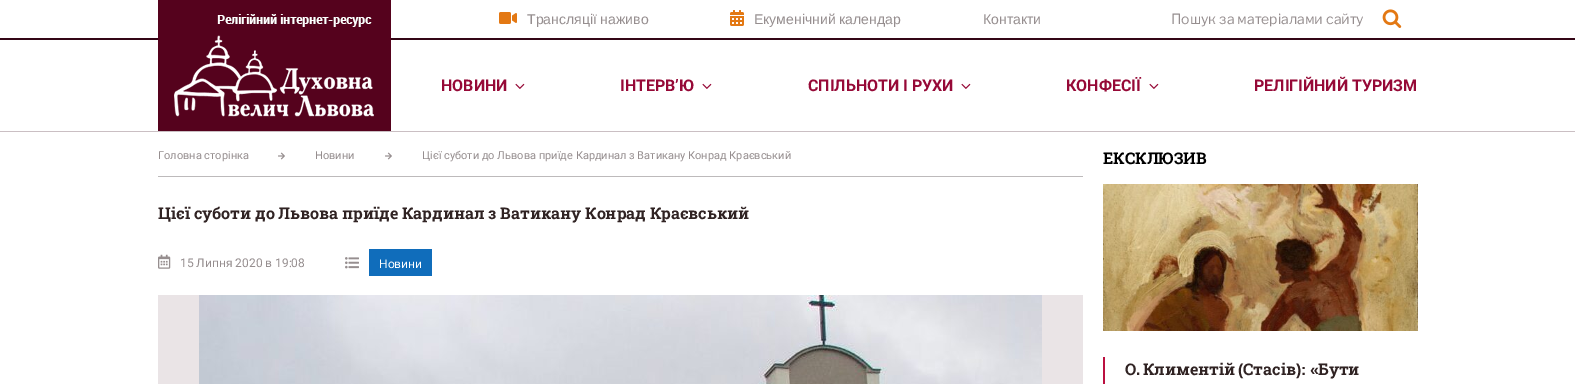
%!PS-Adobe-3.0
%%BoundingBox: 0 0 1575 384
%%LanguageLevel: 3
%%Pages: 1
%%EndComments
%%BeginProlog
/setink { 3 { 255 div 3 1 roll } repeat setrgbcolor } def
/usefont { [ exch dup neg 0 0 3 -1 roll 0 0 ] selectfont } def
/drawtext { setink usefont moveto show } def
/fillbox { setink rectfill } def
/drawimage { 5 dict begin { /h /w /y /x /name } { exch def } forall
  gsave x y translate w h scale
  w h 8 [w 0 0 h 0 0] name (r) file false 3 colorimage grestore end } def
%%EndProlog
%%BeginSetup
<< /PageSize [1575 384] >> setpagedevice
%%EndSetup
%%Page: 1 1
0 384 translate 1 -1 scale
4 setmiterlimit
0 0 1575 384 255 255 255 fillbox
0 131 1575 1 202 191 195 fillbox
0 38 1575 2 52 6 22 fillbox
(assets/img1.rgb) 499 12 18 12 drawimage
(Трансляції наживо) 527 24 /LiberationSans-Regular 14 150 142 143 drawtext
(assets/img2.rgb) 730 10 14 16 drawimage
(Екуменічний календар) 754 24 /LiberationSans-Regular 14 150 142 143 drawtext
(Контакти) 983 24 /LiberationSans-Regular 14 150 142 143 drawtext
(Пошук за матеріалами сайту) 1171 24 /LibreFranklin-Regular 14 150 142 143 drawtext
(assets/img3.rgb) 1382 9 20 19 drawimage
(assets/img4.rgb) 158 0 233 131 drawimage
(НОВИНИ) 441 91 /Roboto-Bold 16 150 9 55 drawtext
(assets/img5.rgb) 515 83 10 6 drawimage
(ІНТЕРВ’Ю) 620 91 /Roboto-Bold 16 150 9 55 drawtext
(assets/img5.rgb) 702 83 10 6 drawimage
(СПІЛЬНОТИ І РУХИ) 808 91 /Roboto-Bold 16 150 9 55 drawtext
(assets/img5.rgb) 961 83 10 6 drawimage
(КОНФЕСІЇ) 1066 91 /Roboto-Bold 16 150 9 55 drawtext
(assets/img5.rgb) 1149 83 10 6 drawimage
(РЕЛІГІЙНИЙ ТУРИЗМ) 1254 91 /Roboto-Bold 16 150 9 55 drawtext
158 176 925 1 189 186 187 fillbox
(Головна сторінка) 158 159 /Roboto-Regular 11 150 142 143 drawtext
(assets/img6.rgb) 278 152 7 8 drawimage
(Новини) 315 159 /Roboto-Regular 11 150 142 143 drawtext
(assets/img6.rgb) 385 152 7 8 drawimage
(Цієї суботи до Львова приїде Кардинал з Ватикану Конрад Краєвський) 422 159 /Roboto-Regular 11 150 142 143 drawtext
(Цієї суботи до Львова приїде Кардинал з Ватикану Конрад Краєвський) 158 219 /RobotoSlab-Bold 16 48 35 35 drawtext
(assets/img7.rgb) 158 254 13 15 drawimage
(15 Липня 2020 в 19:08) 180 267 /Roboto-Regular 12 150 142 143 drawtext
(assets/img8.rgb) 345 257 14 12 drawimage
369 249 63 27 16 109 187 fillbox
(Новини) 379 268 /Roboto-Regular 12 255 255 255 drawtext
158 295 925 89 234 228 230 fillbox
(assets/img9.rgb) 199 295 843 89 drawimage
(ЕКСКЛЮЗИВ) 1103 164 /RobotoSlab-Bold 16 0 0 0 drawtext
(assets/img10.rgb) 1103 184 315 147 drawimage
1103 357 2 27 187 16 64 fillbox
(О) 1125 375 /RobotoSlab-Bold 16 48 35 35 drawtext
(.) 1136 375 /LiberationSans-Bold 16 48 35 35 drawtext
(Климентій) 1143 375 /RobotoSlab-Bold 16 48 35 35 drawtext
(\() 1238 375 /LiberationSans-Bold 16 48 35 35 drawtext
(Стасів) 1243 375 /RobotoSlab-Bold 16 48 35 35 drawtext
/LiberationSans-Bold 16 usefont
1296 375 moveto -1 0 32 (\): «) widthshow
(Бути) 1318 375 /RobotoSlab-Bold 16 48 35 35 drawtext
showpage
%%EOF
